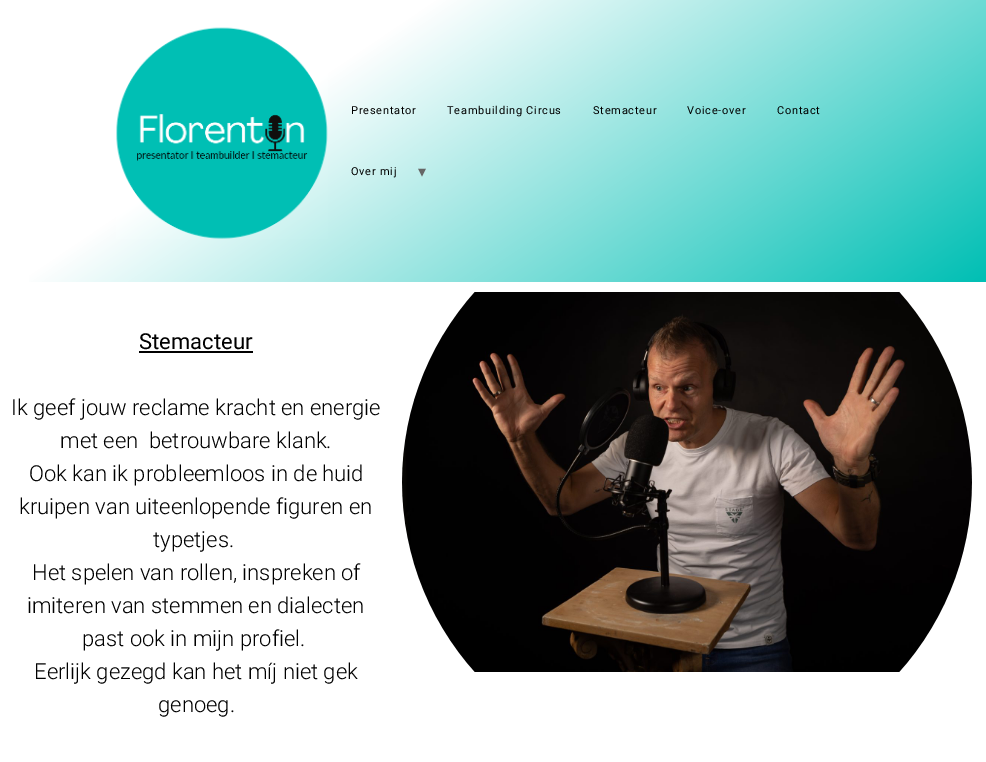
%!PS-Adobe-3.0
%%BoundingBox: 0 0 986 762
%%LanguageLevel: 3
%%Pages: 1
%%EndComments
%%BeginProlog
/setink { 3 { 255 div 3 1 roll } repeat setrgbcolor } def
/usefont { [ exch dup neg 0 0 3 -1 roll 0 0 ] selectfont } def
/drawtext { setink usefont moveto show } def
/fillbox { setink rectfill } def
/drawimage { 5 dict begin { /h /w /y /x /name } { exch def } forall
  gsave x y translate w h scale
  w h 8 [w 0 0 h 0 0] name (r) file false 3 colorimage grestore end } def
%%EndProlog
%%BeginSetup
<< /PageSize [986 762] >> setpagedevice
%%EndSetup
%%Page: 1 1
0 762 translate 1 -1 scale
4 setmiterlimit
0 0 986 762 255 255 255 fillbox
gsave 29 0 moveto 986 0 lineto 986 282 lineto 29 282 lineto closepath clip newpath
<< /ShadingType 2 /ColorSpace /DeviceRGB /Coords [273 -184 713 466] /Extend [true true] /Function << /FunctionType 3 /Domain [0 1] /Functions [<< /FunctionType 2 /Domain [0 1] /C0 [1 1 1] /C1 [1 1 1] /N 1 >> << /FunctionType 2 /Domain [0 1] /C0 [1 1 1] /C1 [0 0.749 0.706] /N 1 >>] /Bounds [0.31] /Encode [0 1 0 1] >> >> shfill grestore
(assets/img1.rgb) 116 27 212 212 drawimage
/Roboto-Regular 11 usefont
0 0 0 setink
351 114 moveto 0.75 0 (Presentator) ashow
447 114 moveto 0.75 0 (Teambuilding Circus) ashow
593 114 moveto 0.75 0 (Stemacteur) ashow
687 114 moveto 0.75 0 (Voice-over) ashow
777 114 moveto 0.75 0 (Contact) ashow
351 175 moveto 0.75 0 (Over mij) ashow
/DejaVuSans-Regular 16 usefont
102 102 102 setink
418 177 moveto 0.75 0 (▾) ashow
(Stemacteur) 139 349 /Roboto-Regular 22 0 0 0 drawtext
139 351 114 2 0 0 0 fillbox
(Ik geef jouw reclame kracht en energie) 11 415 /Roboto-Light 22 0 0 0 drawtext
(met een  betrouwbare klank.) 60 448 /Roboto-Light 22 0 0 0 drawtext
(Ook kan ik probleemloos in de huid) 29 481 /Roboto-Light 22 0 0 0 drawtext
(kruipen van uiteenlopende figuren en) 19 514 /Roboto-Light 22 0 0 0 drawtext
(typetjes.) 153 547 /Roboto-Light 22 0 0 0 drawtext
(Het spelen van rollen, inspreken of) 32 580 /Roboto-Light 22 0 0 0 drawtext
(imiteren van stemmen en dialecten) 27 613 /Roboto-Light 22 0 0 0 drawtext
(past ook in mijn profiel.) 82 646 /Roboto-Light 22 0 0 0 drawtext
(Eerlijk gezegd kan het míj niet gek) 34 679 /Roboto-Light 22 0 0 0 drawtext
(genoeg.) 158 712 /Roboto-Light 22 0 0 0 drawtext
(assets/img2.rgb) 402 292 570 380 drawimage
showpage
%%EOF
